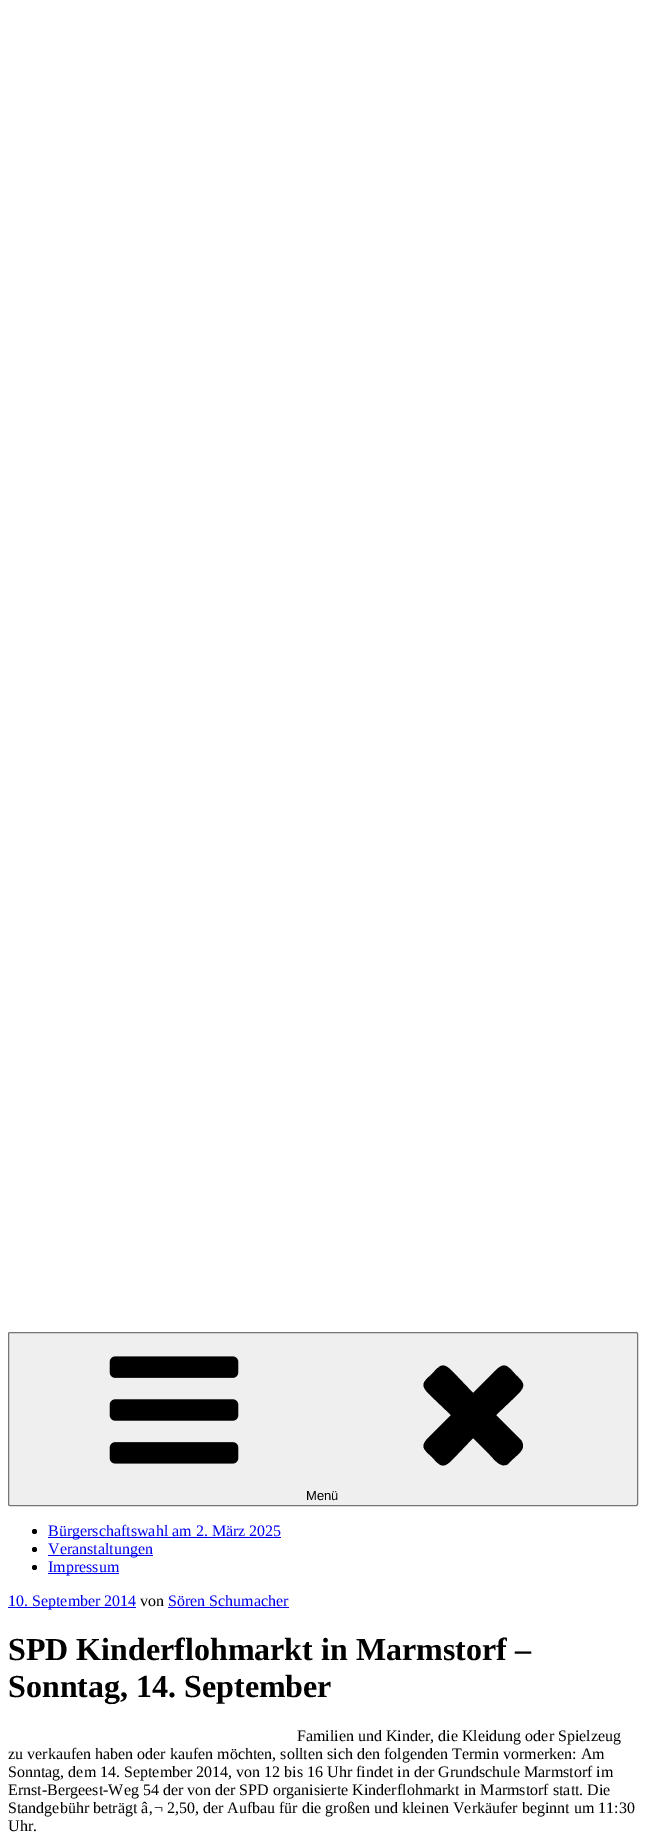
%!PS-Adobe-3.0
%%BoundingBox: 0 0 646 1836
%%LanguageLevel: 3
%%Pages: 1
%%EndComments
%%BeginProlog
/setink { 3 { 255 div 3 1 roll } repeat setrgbcolor } def
/usefont { [ exch dup neg 0 0 3 -1 roll 0 0 ] selectfont } def
/drawtext { setink usefont moveto show } def
/fillbox { setink rectfill } def
/disc { newpath 0 360 arc closepath } def
/rrect { 5 dict begin { /r /h /w /y /x } { exch def } forall
  x r add y moveto x w add y 2 copy h add r arct x w add y h add x 1 index r arct
  x y h add x y r arct x y 2 copy exch w add exch r arct closepath end } def
/drawimage { 5 dict begin { /h /w /y /x /name } { exch def } forall
  gsave x y translate w h scale
  w h 8 [w 0 0 h 0 0] name (r) file false 3 colorimage grestore end } def
%%EndProlog
%%BeginSetup
<< /PageSize [646 1836] >> setpagedevice
%%EndSetup
%%Page: 1 1
0 1836 translate 1 -1 scale
4 setmiterlimit
0 0 646 1836 255 255 255 fillbox
239 239 239 setink
8.5 1332.5 629 173 1.5 rrect gsave fill grestore
118 118 118 setink
stroke
(assets/img1.rgb) 109 1356 130 108 drawimage
0 0 0 setink
523 1446 moveto 523 1451 517 1455 513 1459 curveto 508 1464 lineto 501 1469 494 1459 490 1455 curveto 473 1438 lineto 453 1459 lineto 443 1469 441 1467 432 1457 curveto 422 1448 420 1446 430 1436 curveto 451 1415 lineto 430 1395 lineto 420 1385 422 1383 432 1374 curveto 441 1364 443 1362 453 1372 curveto 473 1393 lineto 494 1372 lineto 504 1362 506 1364 515 1374 curveto 524 1383 527 1385 517 1395 curveto 496 1415 lineto 521 1440 lineto 522 1442 523 1443 523 1446 curveto closepath fill
(Menü) 306 1500 /LiberationSans-Regular 13 0 0 0 drawtext
34.5 1531.5 2.5 disc fill
48 1537 233 1 0 0 238 fillbox
(Bürgerschaftswahl am 2. März 2025) 48 1536 /LiberationSerif-Regular 16 0 0 238 drawtext
0 0 0 setink
34.5 1549.5 2.5 disc fill
48 1555 105 1 0 0 238 fillbox
(Veranstaltungen) 48 1554 /LiberationSerif-Regular 16 0 0 238 drawtext
0 0 0 setink
34.5 1567.5 2.5 disc fill
48 1573 71 1 0 0 238 fillbox
(Impressum) 48 1572 /LiberationSerif-Regular 16 0 0 238 drawtext
8 1607 128 1 0 0 238 fillbox
(10. September 2014) 8 1606 /LiberationSerif-Regular 16 0 0 238 drawtext
(von) 140 1606 /LiberationSerif-Regular 16 0 0 0 drawtext
168 1607 121 1 0 0 238 fillbox
(Sören Schumacher) 168 1606 /LiberationSerif-Regular 16 0 0 238 drawtext
(SPD Kinderflohmarkt in Marmstorf –) 8 1660 /LiberationSerif-Bold 32 0 0 0 drawtext
(Sonntag, 14. September) 8 1697 /LiberationSerif-Bold 32 0 0 0 drawtext
(Familien und Kinder, die Kleidung oder Spielzeug) 297 1741 /LiberationSerif-Regular 16 0 0 0 drawtext
(zu verkaufen haben oder kaufen möchten, sollten sich den folgenden Termin vormerken: Am) 8 1759 /LiberationSerif-Regular 16 0 0 0 drawtext
(Sonntag, dem 14. September 2014, von 12 bis 16 Uhr findet in der Grundschule Marmstorf im) 8 1777 /LiberationSerif-Regular 16 0 0 0 drawtext
(Ernst-Bergeest-Weg 54 der von der SPD organisierte Kinderflohmarkt in Marmstorf statt. Die) 8 1795 /LiberationSerif-Regular 16 0 0 0 drawtext
(Standgebühr beträgt â‚¬ 2,50, der Aufbau für die großen und kleinen Verkäufer beginnt um 11:30) 8 1813 /LiberationSerif-Regular 16 0 0 0 drawtext
(Uhr.) 8 1831 /LiberationSerif-Regular 16 0 0 0 drawtext
showpage
%%EOF
